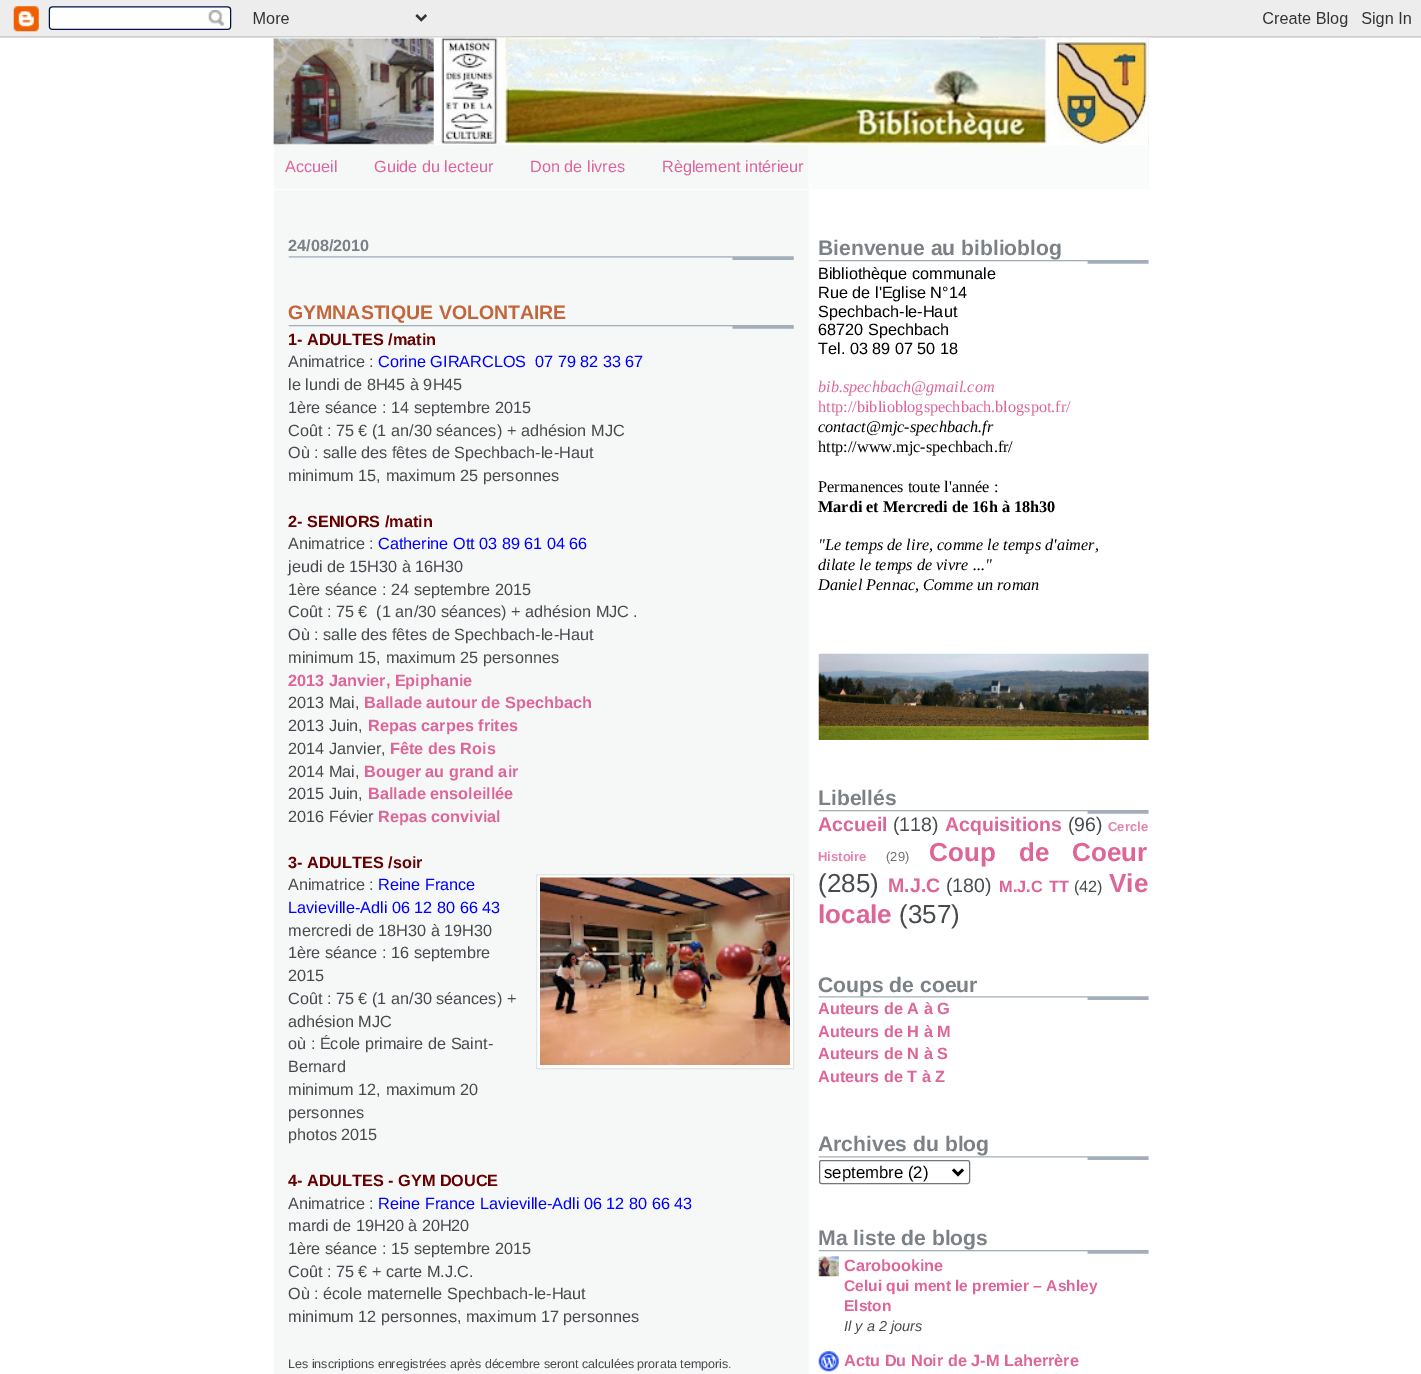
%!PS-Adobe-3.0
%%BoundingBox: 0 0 1421 1374
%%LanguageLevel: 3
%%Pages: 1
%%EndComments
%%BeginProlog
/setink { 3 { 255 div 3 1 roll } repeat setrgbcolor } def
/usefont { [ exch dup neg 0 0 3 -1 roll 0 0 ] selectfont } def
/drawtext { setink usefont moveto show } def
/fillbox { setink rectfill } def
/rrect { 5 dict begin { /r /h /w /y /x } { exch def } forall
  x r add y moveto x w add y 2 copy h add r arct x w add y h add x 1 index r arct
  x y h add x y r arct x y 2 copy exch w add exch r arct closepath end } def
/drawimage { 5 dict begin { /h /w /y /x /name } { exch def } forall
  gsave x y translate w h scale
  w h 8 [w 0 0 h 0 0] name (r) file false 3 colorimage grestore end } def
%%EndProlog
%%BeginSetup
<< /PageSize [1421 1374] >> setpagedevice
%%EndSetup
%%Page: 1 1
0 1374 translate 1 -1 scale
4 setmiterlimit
0 0 1421 1374 255 255 255 fillbox
(assets/img1.rgb) 0 0 1421 38 drawimage
(assets/img2.rgb) 274 38 875 1336 drawimage
(assets/img3.rgb) 273 37 876 108 drawimage
(assets/img4.rgb) 273 37 876 108 drawimage
(assets/img5.rgb) 273 37 876 108 drawimage
(Accueil) 285 172 /LiberationSans-Regular 16.25 221 101 153 drawtext
(Guide du lecteur) 374 172 /LiberationSans-Regular 16.25 221 101 153 drawtext
(Don de livres) 530 172 /LiberationSans-Regular 16.25 221 101 153 drawtext
(Règlement intérieur) 662 172 /LiberationSans-Regular 16.25 221 101 153 drawtext
274 189 535 1 255 255 255 fillbox
(assets/img6.rgb) 288 256 506 4 drawimage
(24/08/2010) 288 251 /LiberationSans-Bold 16.25 123 129 134 drawtext
(assets/img7.rgb) 288 325 506 4 drawimage
(GYMNASTIQUE VOLONTAIRE) 288 319 /LiberationSans-Bold 19.5 196 102 59 drawtext
(1- ADULTES /matin) 288 345 /LiberationSans-Bold 16.25 102 0 0 drawtext
(Animatrice :) 288 367 /LiberationSans-Regular 16.25 71 75 78 drawtext
(Corine GIRARCLOS  07 79 82 33 67) 378 367 /LiberationSans-Regular 16.25 0 0 255 drawtext
(le lundi de 8H45 à 9H45) 288 390 /LiberationSans-Regular 16.25 71 75 78 drawtext
(1ère séance : 14 septembre 2015) 288 413 /LiberationSans-Regular 16.25 71 75 78 drawtext
(Coût : 75 € \(1 an/30 séances\) + adhésion MJC) 288 436 /LiberationSans-Regular 16.25 71 75 78 drawtext
(Où : salle des fêtes de Spechbach-le-Haut) 288 458 /LiberationSans-Regular 16.25 71 75 78 drawtext
(minimum 15, maximum 25 personnes) 288 481 /LiberationSans-Regular 16.25 71 75 78 drawtext
(2- SENIORS /matin) 288 527 /LiberationSans-Bold 16.25 102 0 0 drawtext
(Animatrice :) 288 549 /LiberationSans-Regular 16.25 71 75 78 drawtext
(Catherine Ott 03 89 61 04 66) 378 549 /LiberationSans-Regular 16.25 0 0 255 drawtext
(jeudi de 15H30 à 16H30) 288 572 /LiberationSans-Regular 16.25 71 75 78 drawtext
(1ère séance : 24 septembre 2015) 288 595 /LiberationSans-Regular 16.25 71 75 78 drawtext
(Coût : 75 €  \(1 an/30 séances\) + adhésion MJC .) 288 617 /LiberationSans-Regular 16.25 71 75 78 drawtext
(Où : salle des fêtes de Spechbach-le-Haut) 288 640 /LiberationSans-Regular 16.25 71 75 78 drawtext
(minimum 15, maximum 25 personnes) 288 663 /LiberationSans-Regular 16.25 71 75 78 drawtext
(2013 Janvier, Epiphanie) 288 686 /LiberationSans-Bold 16.25 221 101 153 drawtext
(2013 Mai,) 288 708 /LiberationSans-Regular 16.25 71 75 78 drawtext
(Ballade autour de Spechbach) 364 708 /LiberationSans-Bold 16.25 221 101 153 drawtext
(2013 Juin,) 288 731 /LiberationSans-Regular 16.25 71 75 78 drawtext
(Repas carpes frites) 368 731 /LiberationSans-Bold 16.25 221 101 153 drawtext
(2014 Janvier,) 288 754 /LiberationSans-Regular 16.25 71 75 78 drawtext
(Fête des Rois) 390 754 /LiberationSans-Bold 16.25 221 101 153 drawtext
(2014 Mai,) 288 777 /LiberationSans-Regular 16.25 71 75 78 drawtext
(Bouger au grand air) 364 777 /LiberationSans-Bold 16.25 221 101 153 drawtext
(2015 Juin,) 288 799 /LiberationSans-Regular 16.25 71 75 78 drawtext
(Ballade ensoleillée) 368 799 /LiberationSans-Bold 16.25 221 101 153 drawtext
(2016 Févier) 288 822 /LiberationSans-Regular 16.25 71 75 78 drawtext
(Repas convivial) 378 822 /LiberationSans-Bold 16.25 221 101 153 drawtext
(3- ADULTES /soir) 288 868 /LiberationSans-Bold 16.25 102 0 0 drawtext
(Animatrice :) 288 890 /LiberationSans-Regular 16.25 71 75 78 drawtext
(Reine France) 378 890 /LiberationSans-Regular 16.25 0 0 255 drawtext
255 255 255 setink
536.5 874.5 moveto 793.5 874.5 lineto 793.5 1068.5 lineto 536.5 1068.5 lineto closepath gsave fill grestore
227 228 228 setink
stroke
(assets/img8.rgb) 540 877 250 188 drawimage
(Lavieville-Adli 06 12 80 66 43) 288 913 /LiberationSans-Regular 16.25 0 0 255 drawtext
(mercredi de 18H30 à 19H30) 288 936 /LiberationSans-Regular 16.25 71 75 78 drawtext
(1ère séance : 16 septembre) 288 958 /LiberationSans-Regular 16.25 71 75 78 drawtext
(2015) 288 981 /LiberationSans-Regular 16.25 71 75 78 drawtext
(Coût : 75 € \(1 an/30 séances\) +) 288 1004 /LiberationSans-Regular 16.25 71 75 78 drawtext
(adhésion MJC) 288 1027 /LiberationSans-Regular 16.25 71 75 78 drawtext
(où : École primaire de Saint-) 288 1049 /LiberationSans-Regular 16.25 71 75 78 drawtext
(Bernard) 288 1072 /LiberationSans-Regular 16.25 71 75 78 drawtext
(minimum 12, maximum 20) 288 1095 /LiberationSans-Regular 16.25 71 75 78 drawtext
(personnes) 288 1118 /LiberationSans-Regular 16.25 71 75 78 drawtext
(photos 2015) 288 1140 /LiberationSans-Regular 16.25 71 75 78 drawtext
(4- ADULTES - GYM DOUCE) 288 1186 /LiberationSans-Bold 16.25 102 0 0 drawtext
(Animatrice :) 288 1209 /LiberationSans-Regular 16.25 71 75 78 drawtext
(Reine France Lavieville-Adli 06 12 80 66 43) 378 1209 /LiberationSans-Regular 16.25 0 0 255 drawtext
(mardi de 19H20 à 20H20) 288 1231 /LiberationSans-Regular 16.25 71 75 78 drawtext
(1ère séance : 15 septembre 2015) 288 1254 /LiberationSans-Regular 16.25 71 75 78 drawtext
(Coût : 75 € + carte M.J.C.) 288 1277 /LiberationSans-Regular 16.25 71 75 78 drawtext
(Où : école maternelle Spechbach-le-Haut) 288 1299 /LiberationSans-Regular 16.25 71 75 78 drawtext
(minimum 12 personnes, maximum 17 personnes) 288 1322 /LiberationSans-Regular 16.25 71 75 78 drawtext
(Les inscriptions enregistrées après décembre seront calculées prorata temporis.) 288 1368 /LiberationSans-Regular 12.5 71 75 78 drawtext
810 189 339 1185 255 255 255 fillbox
(assets/img9.rgb) 818 260 331 4 drawimage
(Bienvenue au biblioblog) 818 255 /LiberationSans-Bold 21.1 123 129 134 drawtext
(Bibliothèque communale) 818 279 /LiberationSans-Regular 16.25 0 0 0 drawtext
(Rue de l'Eglise N°14) 818 298 /LiberationSans-Regular 16.25 0 0 0 drawtext
(Spechbach-le-Haut) 818 317 /LiberationSans-Regular 16.25 0 0 0 drawtext
(68720 Spechbach) 818 335 /LiberationSans-Regular 16.25 0 0 0 drawtext
(Tel. 03 89 07 50 18) 818 354 /LiberationSans-Regular 16.25 0 0 0 drawtext
(bib.spechbach@gmail.com) 818 392 /LiberationSerif-Italic 16.25 221 101 153 drawtext
(http://biblioblogspechbach.blogspot.fr/) 818 412 /LiberationSerif-Regular 16.25 221 101 153 drawtext
(contact@mjc-spechbach.fr) 818 432 /LiberationSerif-Italic 16.25 0 0 0 drawtext
(http://www.mjc-spechbach.fr/) 818 452 /LiberationSerif-Regular 16.25 0 0 0 drawtext
(Permanences toute l'année :) 818 492 /LiberationSerif-Regular 16.25 0 0 0 drawtext
(Mardi et Mercredi de 16h à 18h30) 818 512 /LiberationSerif-Bold 16.25 0 0 0 drawtext
("Le temps de lire, comme le temps d'aimer,) 818 550 /LiberationSerif-Italic 16.25 0 0 0 drawtext
(dilate le temps de vivre ...") 818 570 /LiberationSerif-Italic 16.25 0 0 0 drawtext
(Daniel Pennac, Comme un roman) 818 590 /LiberationSerif-Italic 16.25 0 0 0 drawtext
(assets/img10.rgb) 818 653 331 87 drawimage
(assets/img9.rgb) 818 810 331 4 drawimage
(Libellés) 818 805 /LiberationSans-Bold 21.1 123 129 134 drawtext
(Accueil) 818 831 /LiberationSans-Bold 19.5 221 101 153 drawtext
(\(118\)) 893 831 /LiberationSans-Regular 19.5 71 75 78 drawtext
(Acquisitions) 945 831 /LiberationSans-Bold 19.5 221 101 153 drawtext
(\(96\)) 1068 831 /LiberationSans-Regular 19.5 71 75 78 drawtext
(Cercle) 1108 831 /LiberationSans-Bold 13 228 132 173 drawtext
(Histoire) 818 861 /LiberationSans-Bold 13 228 132 173 drawtext
(\(29\)) 886 861 /LiberationSans-Regular 13 108 111 113 drawtext
/LiberationSans-Bold 26 usefont
221 101 153 setink
929 861 moveto 16 0 32 (Coup de Coeur) widthshow
(\(285\)) 818 892 /LiberationSans-Regular 26 71 75 78 drawtext
(M.J.C) 888 892 /LiberationSans-Bold 19.5 221 101 153 drawtext
(\(180\)) 946 892 /LiberationSans-Regular 19.5 71 75 78 drawtext
/LiberationSans-Bold 16.25 usefont
221 101 153 setink
999 892 moveto 2 0 32 (M.J.C TT) widthshow
(\(42\)) 1074 892 /LiberationSans-Regular 16.25 71 75 78 drawtext
(Vie) 1109 892 /LiberationSans-Bold 26 221 101 153 drawtext
(locale) 818 923 /LiberationSans-Bold 26 221 101 153 drawtext
(\(357\)) 899 923 /LiberationSans-Regular 26 71 75 78 drawtext
(assets/img11.rgb) 818 996 331 4 drawimage
(Coups de coeur) 818 992 /LiberationSans-Bold 21.1 123 129 134 drawtext
(Auteurs de A à G) 818 1014 /LiberationSans-Bold 16.25 221 101 153 drawtext
(Auteurs de H à M) 818 1037 /LiberationSans-Bold 16.25 221 101 153 drawtext
(Auteurs de N à S) 818 1059 /LiberationSans-Bold 16.25 221 101 153 drawtext
(Auteurs de T à Z) 818 1082 /LiberationSans-Bold 16.25 221 101 153 drawtext
(assets/img11.rgb) 818 1156 331 4 drawimage
(Archives du blog) 818 1151 /LiberationSans-Bold 21.1 123 129 134 drawtext
118 118 118 setink
819.5 1160.5 150 23 2 rrect stroke
0 0 0 setink
2.5 setlinewidth
953 1169.5 moveto 958 1174.5 lineto 963 1169.5 lineto stroke
(septembre \(2\)) 824 1178 /LiberationSans-Regular 16.75 0 0 0 drawtext
(assets/img9.rgb) 818 1250 331 4 drawimage
(Ma liste de blogs) 818 1245 /LiberationSans-Bold 21.1 123 129 134 drawtext
(assets/img12.rgb) 818 1256 21 21 drawimage
(Carobookine) 844 1271 /LiberationSans-Bold 16.25 221 101 153 drawtext
(Celui qui ment le premier – Ashley) 844 1291 /LiberationSans-Bold 15.5 221 101 153 drawtext
(Elston) 844 1311 /LiberationSans-Bold 15.5 221 101 153 drawtext
(Il y a 2 jours) 844 1331 /LiberationSans-Italic 14.5 71 75 78 drawtext
(assets/img13.rgb) 818 1351 21 21 drawimage
(Actu Du Noir de J-M Laherrère) 844 1366 /LiberationSans-Bold 16.25 221 101 153 drawtext
showpage
%%EOF
